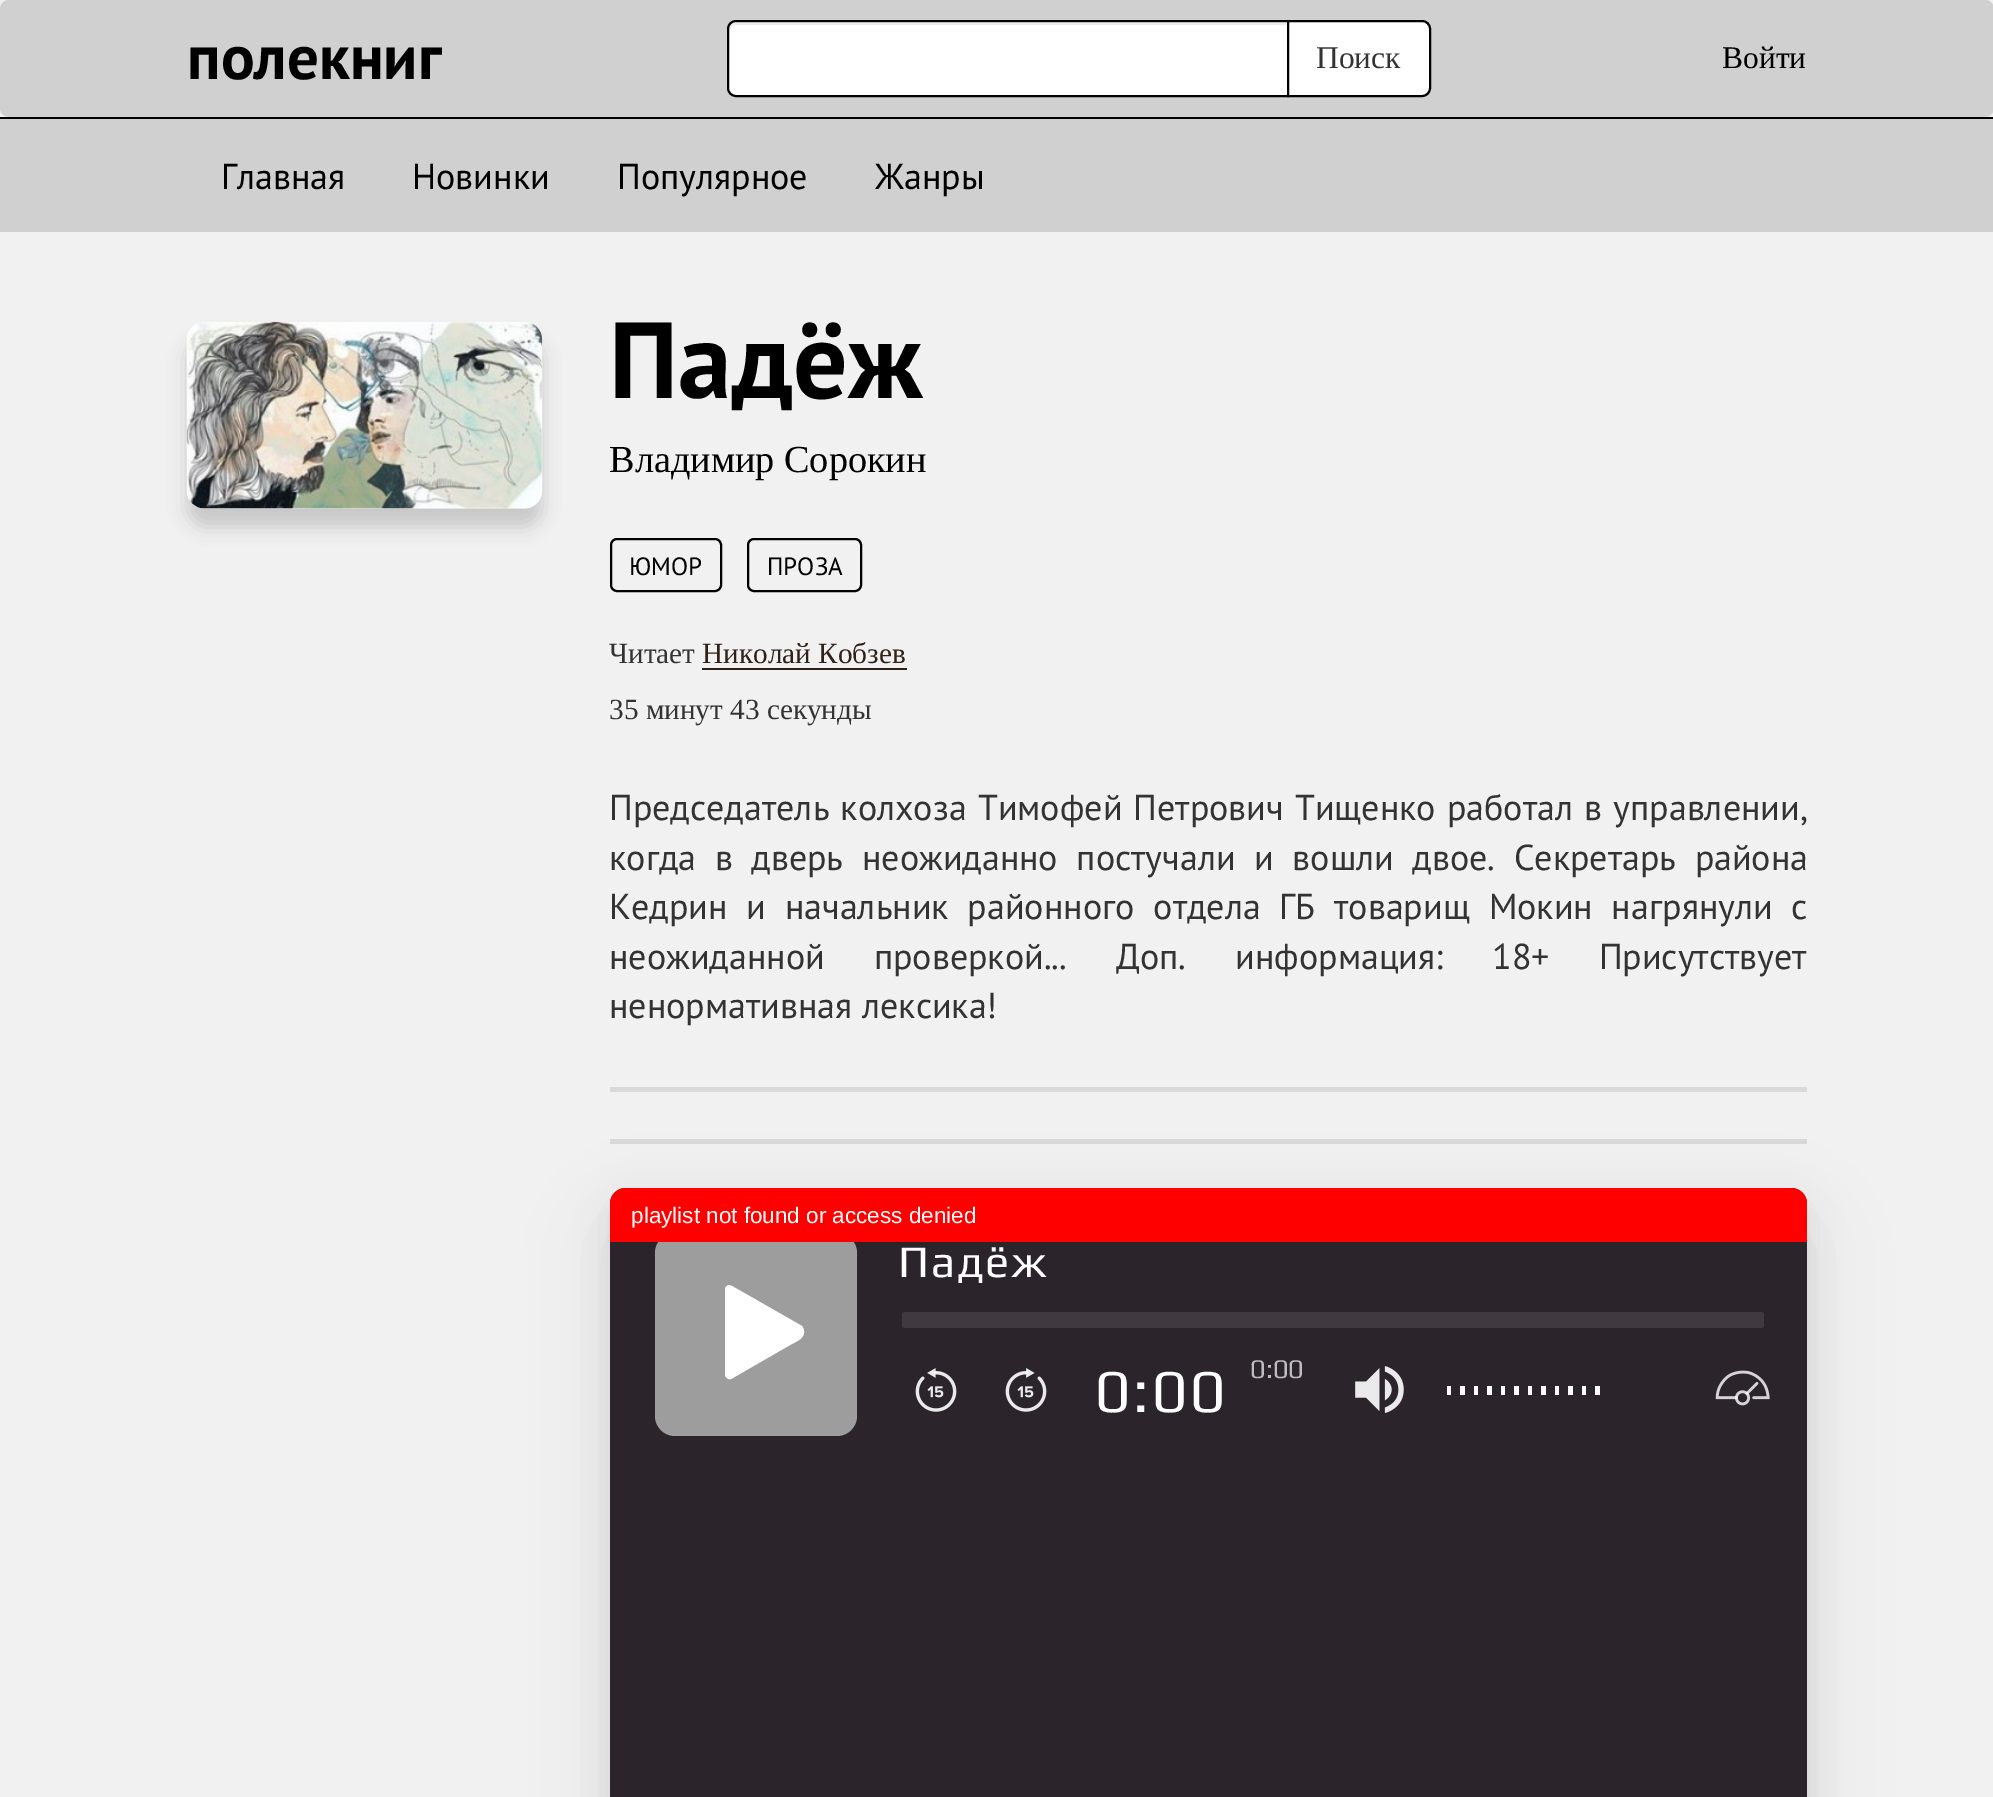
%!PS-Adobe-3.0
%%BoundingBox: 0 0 1993 1797
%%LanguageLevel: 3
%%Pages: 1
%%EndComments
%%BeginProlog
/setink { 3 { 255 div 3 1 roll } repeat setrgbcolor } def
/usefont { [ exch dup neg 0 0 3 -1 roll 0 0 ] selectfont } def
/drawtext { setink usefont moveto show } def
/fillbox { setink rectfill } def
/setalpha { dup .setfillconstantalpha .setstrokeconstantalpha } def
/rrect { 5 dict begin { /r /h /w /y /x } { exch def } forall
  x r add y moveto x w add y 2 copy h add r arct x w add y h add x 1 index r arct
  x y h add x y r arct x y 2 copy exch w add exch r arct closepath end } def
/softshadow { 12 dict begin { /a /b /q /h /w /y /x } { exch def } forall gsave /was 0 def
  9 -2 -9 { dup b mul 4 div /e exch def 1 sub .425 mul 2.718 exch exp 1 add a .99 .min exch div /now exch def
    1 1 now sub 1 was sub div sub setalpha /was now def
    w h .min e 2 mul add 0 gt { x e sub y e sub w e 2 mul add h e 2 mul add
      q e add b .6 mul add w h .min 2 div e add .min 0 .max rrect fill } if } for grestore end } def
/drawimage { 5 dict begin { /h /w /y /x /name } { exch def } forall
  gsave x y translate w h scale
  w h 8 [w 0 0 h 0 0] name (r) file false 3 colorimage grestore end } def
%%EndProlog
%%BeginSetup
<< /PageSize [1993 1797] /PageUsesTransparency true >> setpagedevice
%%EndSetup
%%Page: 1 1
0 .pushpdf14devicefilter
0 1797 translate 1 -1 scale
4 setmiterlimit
0 0 1993 1797 241 241 241 fillbox
208 208 208 setink
0 0 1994 117 9 rrect fill
(полекниг) 187 79 /PTSans-Bold 63 0 0 0 drawtext
255 255 255 setink
736 20 moveto 1289 20 lineto 1289 97 lineto 736 97 lineto 731 97 727 93 727 88 curveto 727 29 lineto 727 24 731 20 736 20 curveto closepath fill
236 236 236 setink
736 25 moveto 1287 25 lineto 1287 23 lineto 736 23 lineto 732 23 729 26 729 30 curveto 729 32 lineto 729 28 732 25 736 25 curveto closepath fill
0 0 0 setink
2 setlinewidth
736 21 moveto 1288 21 lineto 1288 96 lineto 736 96 lineto 731.5 96 728 92.5 728 88 curveto 728 29 lineto 728 24.5 731.5 21 736 21 curveto closepath stroke
255 255 255 setink
1288 21 moveto 1422 21 lineto 1426.5 21 1430 24.5 1430 29 curveto 1430 88 lineto 1430 92.5 1426.5 96 1422 96 curveto 1288 96 lineto closepath gsave fill grestore
0 0 0 setink
stroke
(Поиск) 1316 68 /LiberationSerif-Regular 31.5 51 51 51 drawtext
(Войти) 1722 68 /LiberationSerif-Regular 31.5 0 0 0 drawtext
0 119 1993 113 208 208 208 fillbox
0 117 1993 2 0 0 0 fillbox
(Главная) 221 189 /PTSans-Regular 36 0 0 0 drawtext
(Новинки) 412 189 /PTSans-Regular 36 0 0 0 drawtext
(Популярное) 617 189 /PTSans-Regular 36 0 0 0 drawtext
(Жанры) 875 189 /PTSans-Regular 36 0 0 0 drawtext
37 38 40 setink
187 340 355 187 18 9 0.2 softshadow
(assets/img1.rgb) 186 321 357 188 drawimage
(Падёж) 609 398 /PTSans-Bold 108 0 0 0 drawtext
(Владимир Сорокин) 609 472 /LiberationSerif-Regular 38.25 0 0 0 drawtext
611 539 110 52 6 rrect stroke
(ЮМОР) 629 575 /PTSans-Regular 25 0 0 0 drawtext
748 539 113 52 6 rrect stroke
(ПРОЗА) 767 575 /PTSans-Regular 25 0 0 0 drawtext
(Читает) 609 663 /LiberationSerif-Regular 29.25 51 51 51 drawtext
(Николай Кобзев) 702 663 /LiberationSerif-Regular 29.25 48 33 25 drawtext
702 668 205 2 48 33 25 fillbox
(35 минут 43 секунды) 609 719 /LiberationSerif-Regular 29.25 51 51 51 drawtext
/PTSans-Regular 36 usefont
609 820 moveto 1.5 0 32 (Председатель колхоза Тимофей Петрович Тищенко работал в управлении,) widthshow
609 870 moveto 9 0 32 (когда в дверь неожиданно постучали и вошли двое. Секретарь района) widthshow
609 919 moveto 9.25 0 32 (Кедрин и начальник районного отдела ГБ товарищ Мокин нагрянули с) widthshow
609 969 moveto 39.5 0 32 (неожиданной проверкой... Доп. информация: 18+ Присутствует) widthshow
(ненормативная лексика!) 609 1018 /PTSans-Regular 36 51 51 51 drawtext
610 1087 1197 5 217 217 217 fillbox
610 1139 1197 5 217 217 217 fillbox
0 0 0 setink
610 1199 1197 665 16 17 0.07 softshadow
50 50 93 setink
610 1222 1197 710 16 39.5 0.1 softshadow
43 36 43 setink
610 1188 1197 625 16 rrect fill
157 157 157 setink
655 1233 202 203 20 rrect fill
255 0 0 setink
626 1188 moveto 1791 1188 lineto 1800 1188 1807 1195 1807 1204 curveto 1807 1242 lineto 610 1242 lineto 610 1204 lineto 610 1195 617 1188 626 1188 curveto closepath fill
(playlist not found or access denied) 631 1223 /LiberationSans-Regular 22.5 255 255 255 drawtext
802 1326 moveto 732 1286 lineto 729 1285 lineto 727 1285 725 1287 725 1290 curveto 725 1374 lineto 725 1377 728 1380 731 1379 curveto 790 1345 lineto 795 1342 805 1339 804 1331 curveto 804 1329 803 1328 802 1326 curveto closepath fill
/Play-Regular 45 usefont
898 1277 moveto 2.25 0 (Падёж) ashow
64 58 64 setink
902 1312 862 16 3 rrect fill
(assets/img2.rgb) 915 1368 42 44 drawimage
(assets/img3.rgb) 1005 1368 42 44 drawimage
/Play-Regular 61 usefont
255 255 255 setink
1095 1412 moveto 3 0 (0:00) ashow
(0:00) 1250 1378 /Play-Regular 27 191 189 191 drawtext
(assets/img4.rgb) 1355 1366 49 47 drawimage
1447 1386 4 9 255 255 255 fillbox
1460 1386 5 9 255 255 255 fillbox
1474 1386 4 9 255 255 255 fillbox
1487 1386 5 9 255 255 255 fillbox
1501 1386 4 9 255 255 255 fillbox
1514 1386 5 9 255 255 255 fillbox
1528 1386 4 9 255 255 255 fillbox
1541 1386 5 9 255 255 255 fillbox
1555 1386 4 9 255 255 255 fillbox
1568 1386 5 9 255 255 255 fillbox
1582 1386 4 9 255 255 255 fillbox
1595 1386 5 9 255 255 255 fillbox
(assets/img5.rgb) 1715 1370 55 36 drawimage
.poppdf14devicefilter showpage
%%EOF
